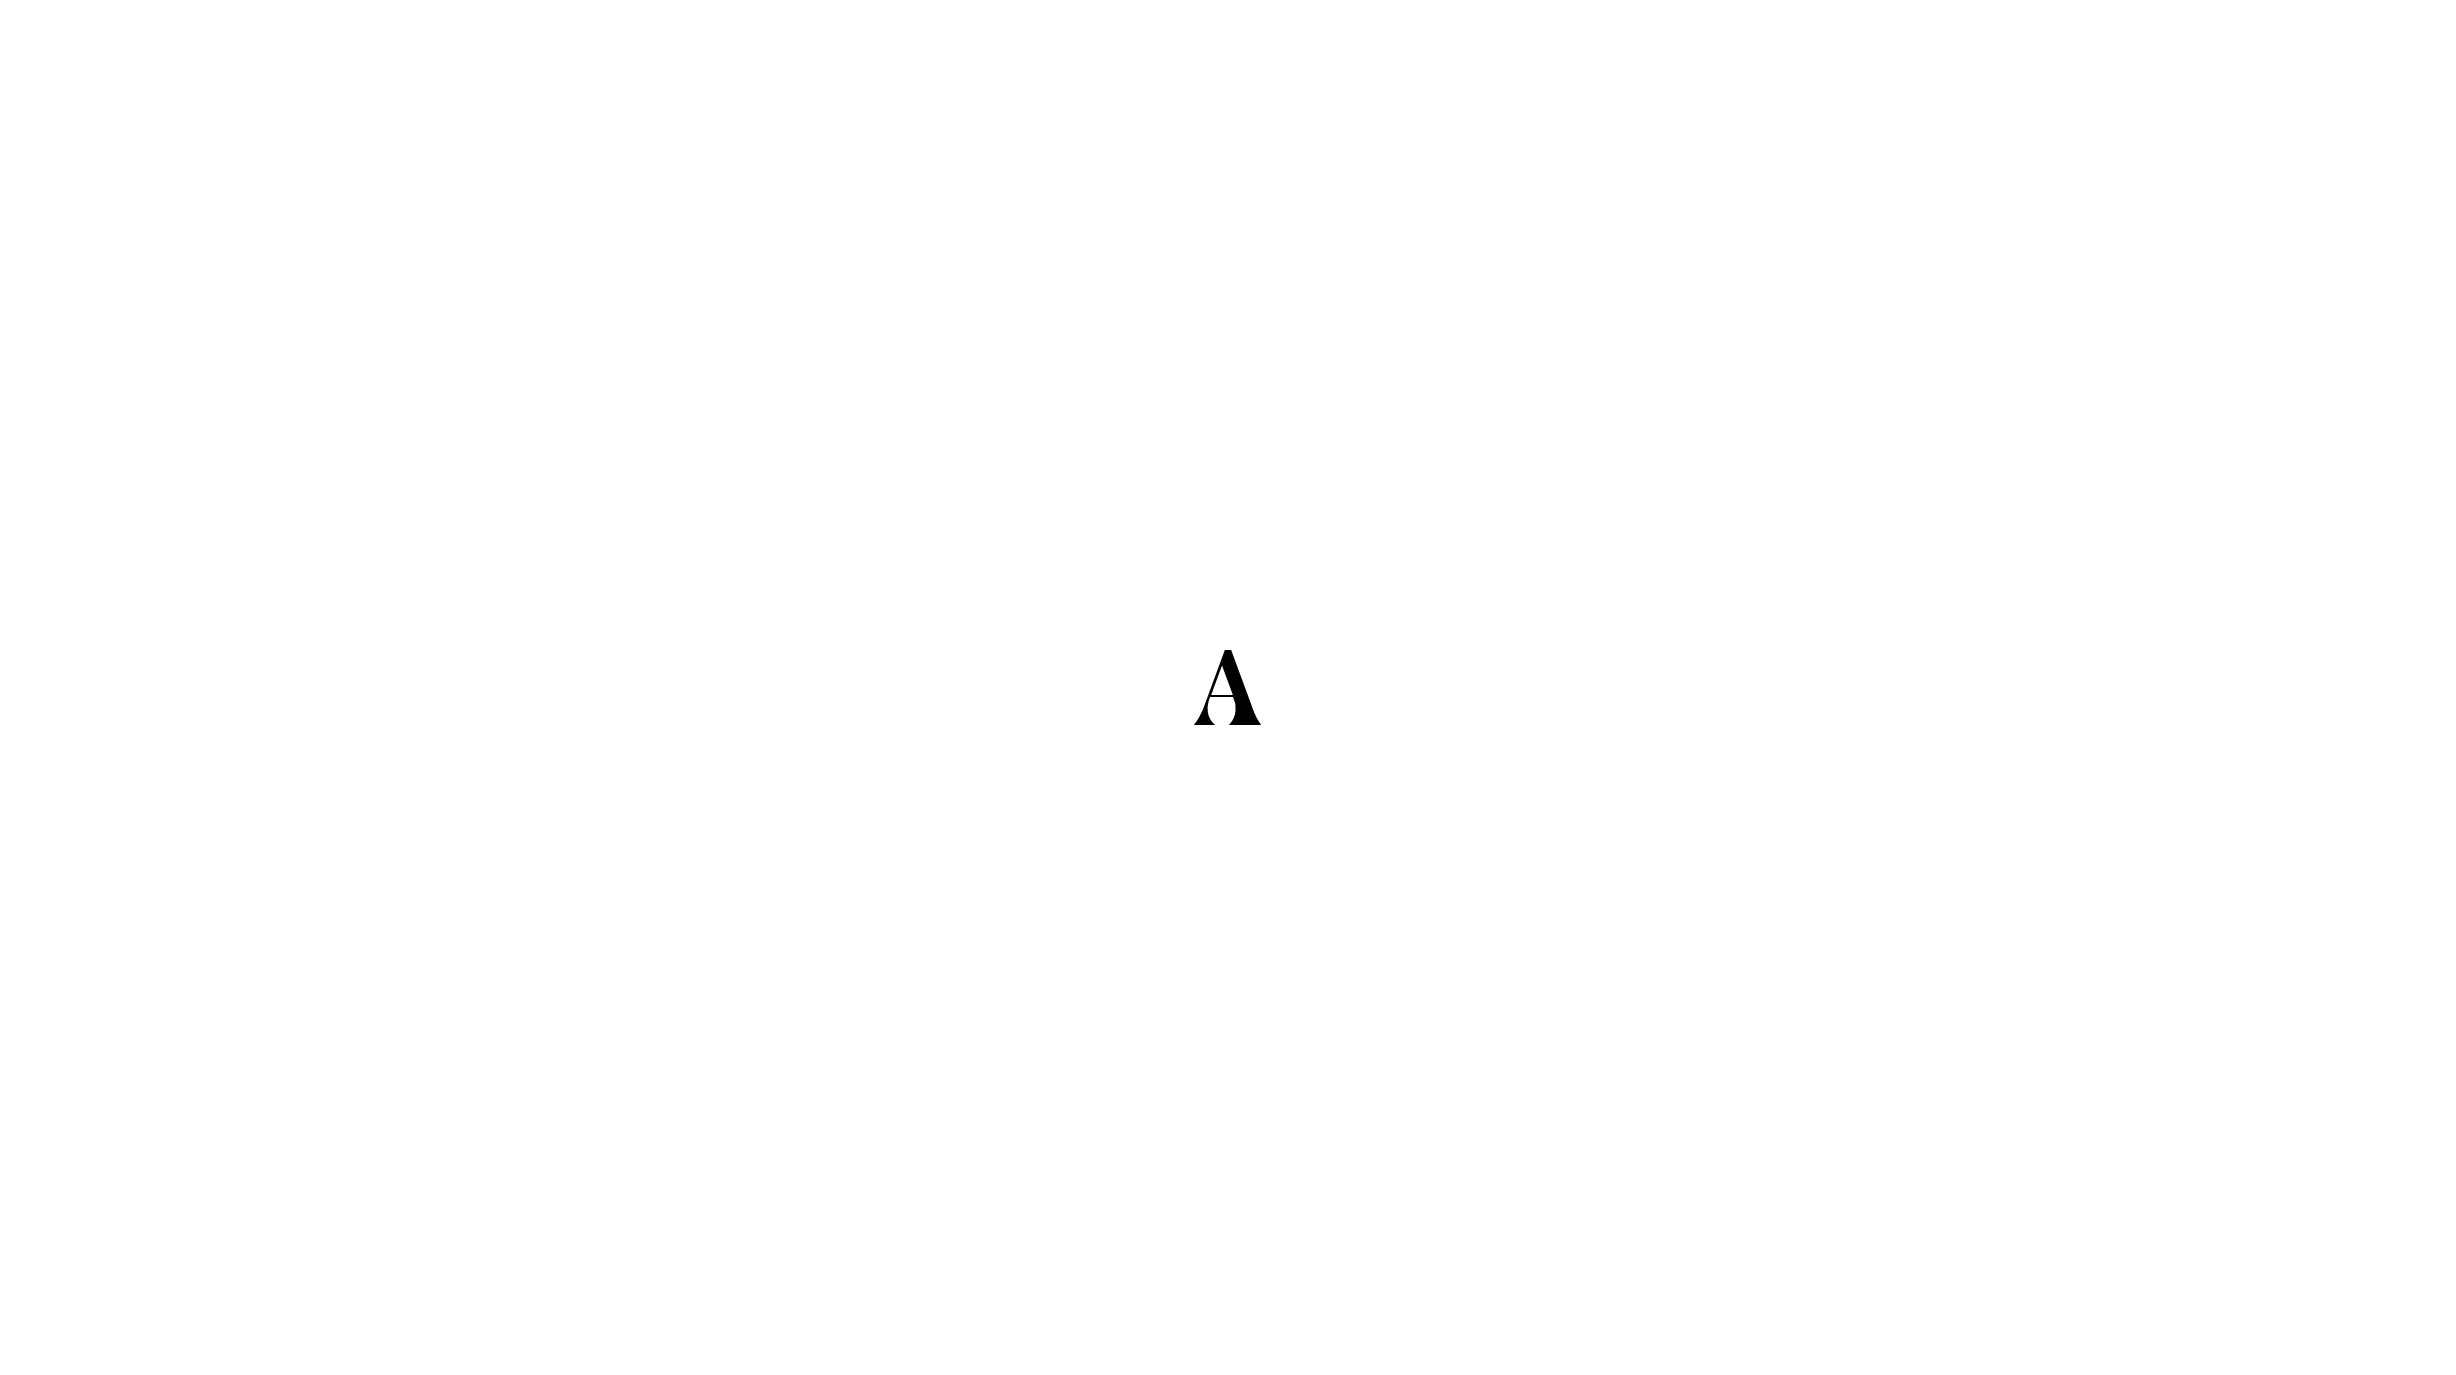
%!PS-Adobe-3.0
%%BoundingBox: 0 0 2456 1375
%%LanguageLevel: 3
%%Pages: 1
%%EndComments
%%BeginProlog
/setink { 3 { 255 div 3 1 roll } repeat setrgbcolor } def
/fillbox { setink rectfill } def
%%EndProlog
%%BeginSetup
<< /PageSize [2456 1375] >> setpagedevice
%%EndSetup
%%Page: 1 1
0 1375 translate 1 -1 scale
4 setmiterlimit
0 0 2456 1375 255 255 255 fillbox
0 0 0 setink
1212 725 moveto 1194 725 lineto 1198 720 1201 715 1204 707 curveto 1225 650 lineto 1231 650 lineto 1252 707 lineto 1255 716 1258 721 1261 725 curveto 1229 725 lineto 1235 719 1237 711 1235 702 curveto 1233 697 lineto 1210 697 lineto 1206 706 1206 718 1215 725 curveto closepath 1222 665 moveto 1211 695 lineto 1233 695 lineto closepath fill
showpage
%%EOF
